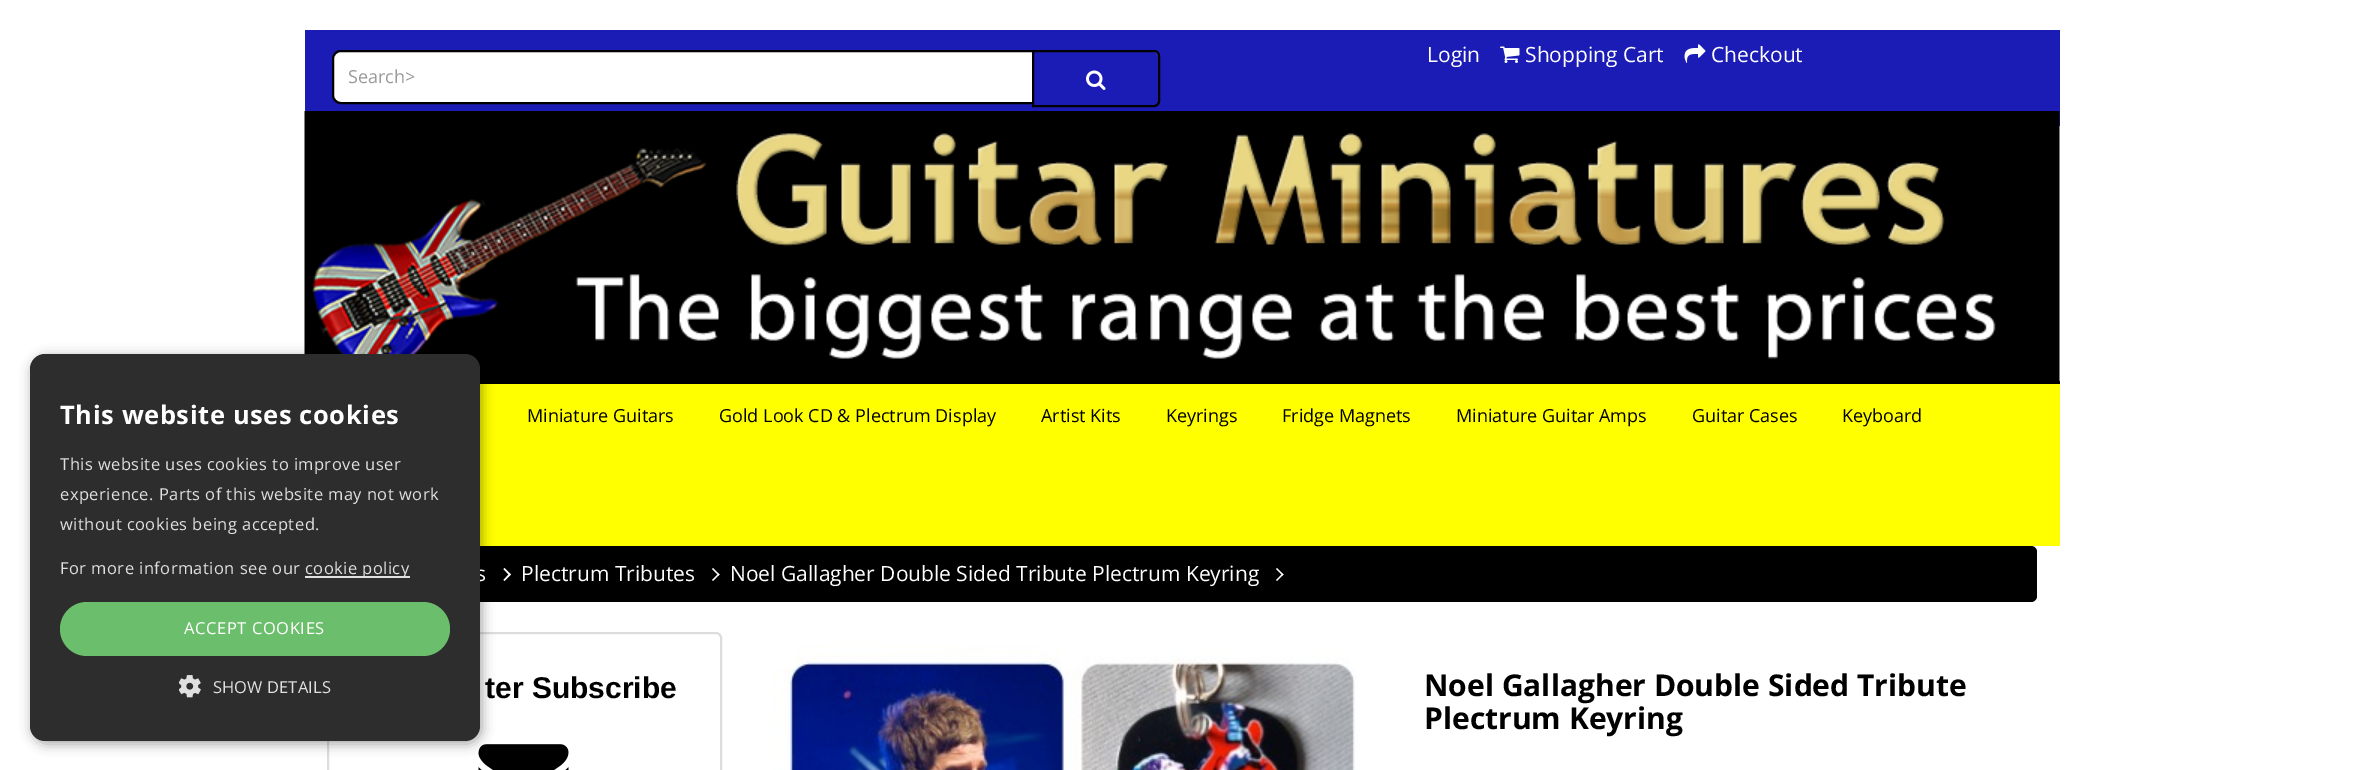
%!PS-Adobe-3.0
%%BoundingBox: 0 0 2363 770
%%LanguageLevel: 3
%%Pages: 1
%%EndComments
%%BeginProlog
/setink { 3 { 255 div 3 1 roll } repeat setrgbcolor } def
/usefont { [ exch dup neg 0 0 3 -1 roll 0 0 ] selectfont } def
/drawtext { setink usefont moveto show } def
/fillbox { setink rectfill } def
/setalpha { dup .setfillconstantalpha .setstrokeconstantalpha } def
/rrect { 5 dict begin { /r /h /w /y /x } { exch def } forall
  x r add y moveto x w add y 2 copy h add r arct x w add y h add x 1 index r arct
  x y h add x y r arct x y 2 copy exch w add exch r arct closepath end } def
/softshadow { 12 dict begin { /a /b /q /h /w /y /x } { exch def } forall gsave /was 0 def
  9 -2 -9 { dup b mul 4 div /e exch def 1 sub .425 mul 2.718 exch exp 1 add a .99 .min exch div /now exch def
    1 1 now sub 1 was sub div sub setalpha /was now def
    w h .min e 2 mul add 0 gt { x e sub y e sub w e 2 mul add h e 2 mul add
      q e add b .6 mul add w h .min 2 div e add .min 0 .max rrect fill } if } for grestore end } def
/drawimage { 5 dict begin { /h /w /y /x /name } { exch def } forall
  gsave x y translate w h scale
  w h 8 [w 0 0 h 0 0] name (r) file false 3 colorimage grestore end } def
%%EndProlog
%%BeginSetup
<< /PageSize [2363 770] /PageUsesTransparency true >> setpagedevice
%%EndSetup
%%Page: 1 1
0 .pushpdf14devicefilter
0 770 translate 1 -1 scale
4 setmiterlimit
0 0 2363 770 255 255 255 fillbox
305 30 1755 96 27 28 181 fillbox
(Login) 1427 62 /OpenSans-Regular 21 255 255 255 drawtext
(assets/img1.rgb) 1500 46 20 17 drawimage
(Shopping Cart) 1525 62 /OpenSans-Regular 21 255 255 255 drawtext
(assets/img2.rgb) 1684 44 22 19 drawimage
(Checkout) 1711 62 /OpenSans-Regular 21 255 255 255 drawtext
341 51 moveto 1033 51 lineto 1033 103 lineto 341 103 lineto 336.5 103 333 99.5 333 95 curveto 333 59 lineto 333 54.5 336.5 51 341 51 curveto closepath gsave fill grestore
0 0 0 setink
2 setlinewidth
stroke
(Search>) 348 83 /OpenSans-Regular 18 153 153 153 drawtext
27 28 181 setink
1032 50 moveto 1154 50 lineto 1157.5 50 1160 52.5 1160 56 curveto 1160 101 lineto 1160 104.5 1157.5 107 1154 107 curveto 1032 107 lineto closepath fill
73 73 196 setink
1034 52 moveto 1154 52 lineto 1156 52 1158 55 1158 57 curveto 1158 56 lineto 1158 53 1156 51 1153 51 curveto 1034 51 lineto closepath fill
0 0 0 setink
1033 51 moveto 1154 51 lineto 1157 51 1159 53 1159 56 curveto 1159 101 lineto 1159 104 1157 106 1154 106 curveto 1033 106 lineto closepath stroke
(assets/img3.rgb) 1086 70 20 20 drawimage
480 381 1580 3 0 0 0 fillbox
(assets/img4.rgb) 304 111 1756 270 drawimage
480 384 1580 162 255 255 0 fillbox
0 0 0 setink
327 546 1710 56 6 rrect fill
221 221 221 setink
328 633 393 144 5 rrect stroke
(assets/img6.rgb) 478 744 91 26 drawimage
0 0 0 setink
32 357 450 387 15 6 0.35 softshadow
(s) 476 581 /OpenSans-Regular 21 255 255 255 drawtext
45 45 45 setink
30 354 450 387 15 rrect fill
/OpenSans-Bold 25.5 usefont
255 255 255 setink
60 424 moveto 0.6 0 (This website uses cookies) ashow
/OpenSans-Regular 16.5 usefont
224 224 224 setink
60 470 moveto 0.45 0 (This website uses cookies to improve user) ashow
60 500 moveto 0.45 0 (experience. Parts of this website may not work) ashow
60 530 moveto 0.45 0 (without cookies being accepted.) ashow
60 574 moveto 0.45 0 (For more information see our) ashow
305 576 105 2 224 224 224 fillbox
305 574 moveto 0.45 0 (cookie policy) ashow
107 190 107 setink
60 602 390 54 27 rrect fill
255 255 255 setink
184 634 moveto 0.6 0 (ACCEPT COOKIES) ashow
(assets/img5.rgb) 179 675 22 23 drawimage
224 224 224 setink
213 693 moveto 0.1 0 (SHOW DETAILS) ashow
(Miniature Guitars) 527 422 /OpenSans-Regular 18 0 0 0 drawtext
(Gold Look CD & Plectrum Display) 719 422 /OpenSans-Regular 18 0 0 0 drawtext
(Artist Kits) 1041 422 /OpenSans-Regular 18 0 0 0 drawtext
(Keyrings) 1166 422 /OpenSans-Regular 18 0 0 0 drawtext
(Fridge Magnets) 1282 422 /OpenSans-Regular 18 0 0 0 drawtext
(Miniature Guitar Amps) 1456 422 /OpenSans-Regular 18 0 0 0 drawtext
(Guitar Cases) 1692 422 /OpenSans-Regular 18 0 0 0 drawtext
(Keyboard) 1842 422 /OpenSans-Regular 18 0 0 0 drawtext
255 255 255 setink
503.5 569 moveto 504.5 568 lineto 511 574.5 lineto 509.5 575.5 lineto closepath fill
503.5 580 moveto 509.5 573.5 lineto 511 574.5 lineto 504.5 581 lineto closepath fill
(Plectrum Tributes) 521 581 /OpenSans-Regular 21 255 255 255 drawtext
712 569 moveto 713 568 lineto 719.5 574.5 lineto 718.5 575.5 lineto closepath fill
712 580 moveto 718.5 573.5 lineto 719.5 574.5 lineto 713 581 lineto closepath fill
(Noel Gallagher Double Sided Tribute Plectrum Keyring) 730 581 /OpenSans-Regular 21 255 255 255 drawtext
1276 569 moveto 1277 568 lineto 1283.5 574.5 lineto 1282.5 575.5 lineto closepath fill
1276 580 moveto 1282.5 573.5 lineto 1283.5 574.5 lineto 1277 581 lineto closepath fill
(ter Subscribe) 485 698 /LiberationSans-Bold 30 0 0 0 drawtext
(assets/img7.rgb) 773 645 584 125 drawimage
(Noel Gallagher Double Sided Tribute) 1424 696 /OpenSans-Bold 30 0 0 0 drawtext
(Plectrum Keyring) 1424 729 /OpenSans-Bold 30 0 0 0 drawtext
.poppdf14devicefilter showpage
%%EOF
